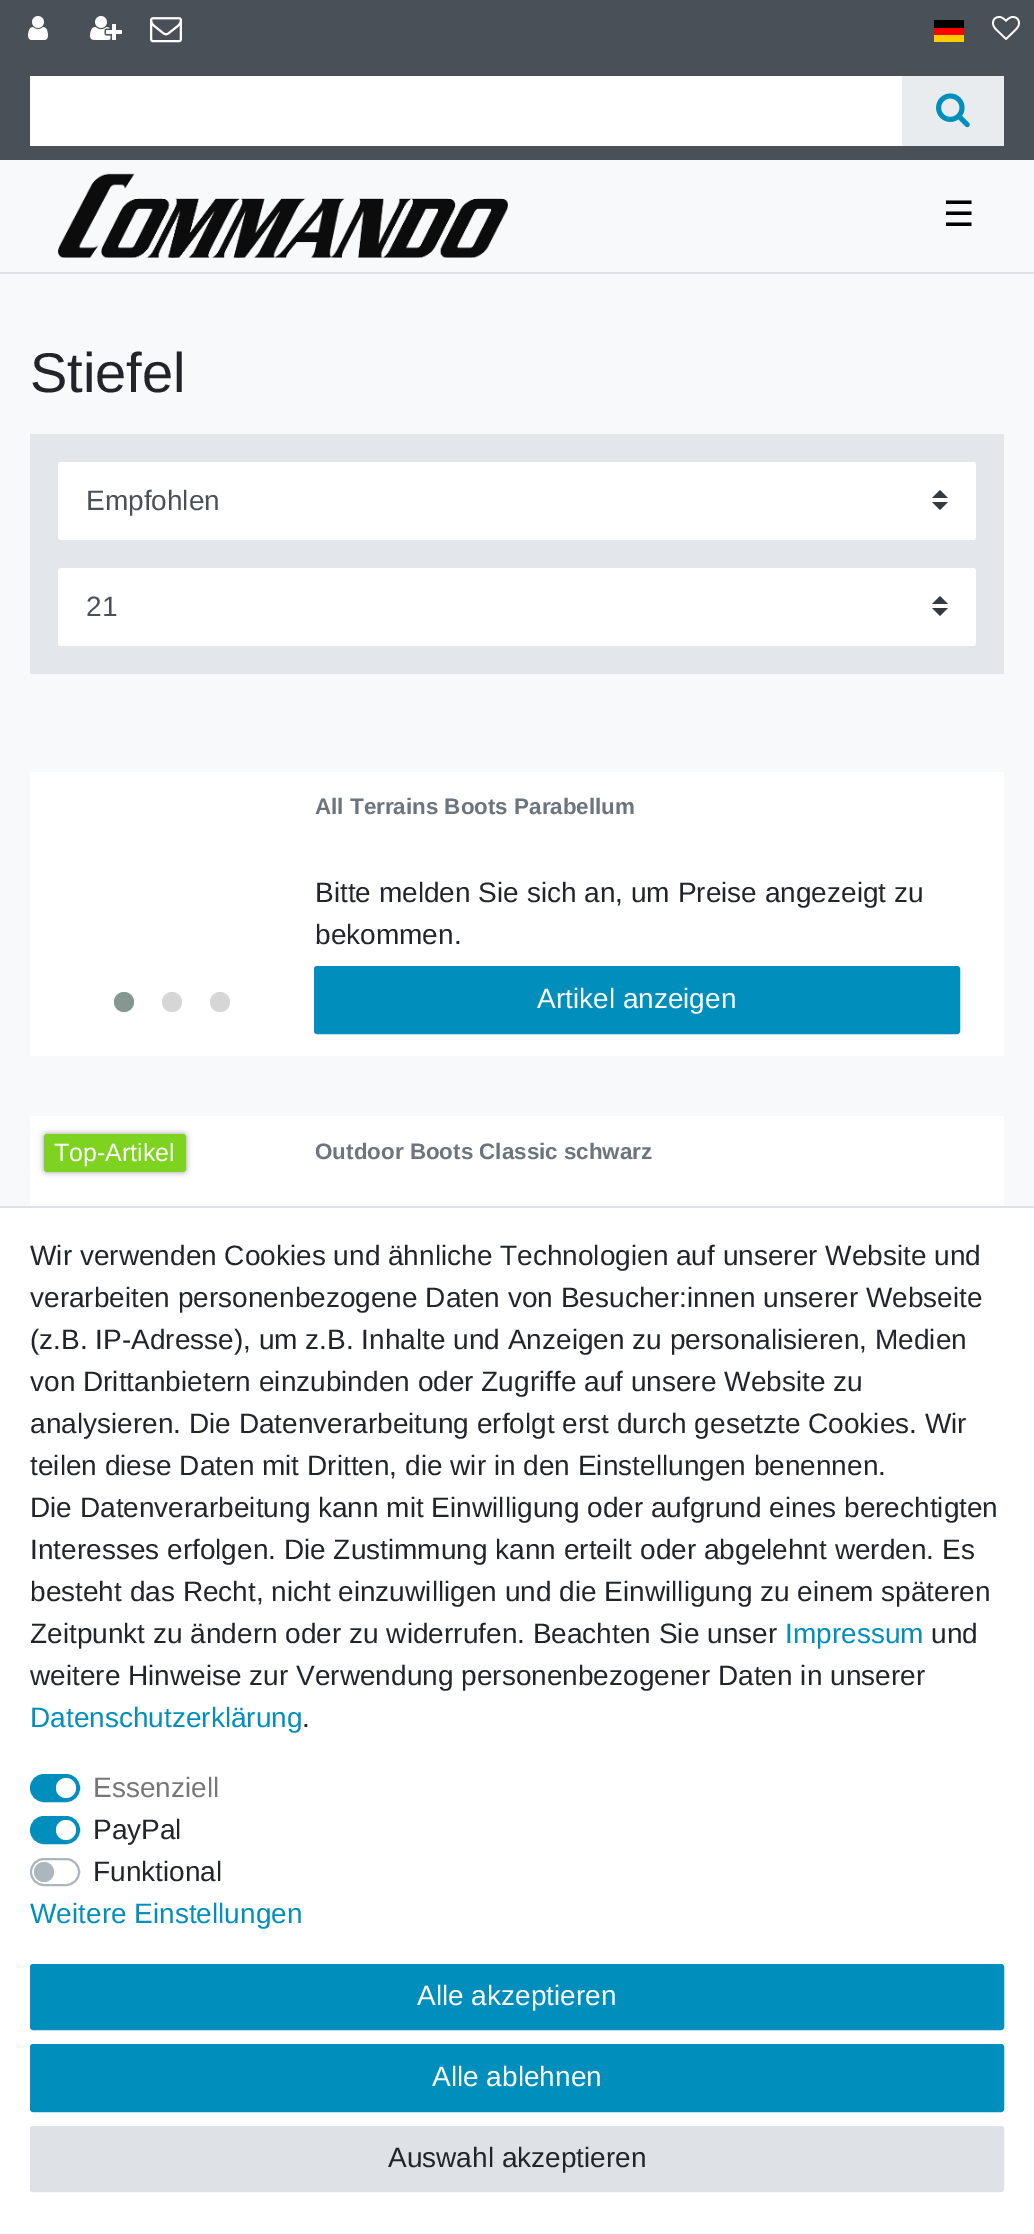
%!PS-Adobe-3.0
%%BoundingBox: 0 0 1034 2234
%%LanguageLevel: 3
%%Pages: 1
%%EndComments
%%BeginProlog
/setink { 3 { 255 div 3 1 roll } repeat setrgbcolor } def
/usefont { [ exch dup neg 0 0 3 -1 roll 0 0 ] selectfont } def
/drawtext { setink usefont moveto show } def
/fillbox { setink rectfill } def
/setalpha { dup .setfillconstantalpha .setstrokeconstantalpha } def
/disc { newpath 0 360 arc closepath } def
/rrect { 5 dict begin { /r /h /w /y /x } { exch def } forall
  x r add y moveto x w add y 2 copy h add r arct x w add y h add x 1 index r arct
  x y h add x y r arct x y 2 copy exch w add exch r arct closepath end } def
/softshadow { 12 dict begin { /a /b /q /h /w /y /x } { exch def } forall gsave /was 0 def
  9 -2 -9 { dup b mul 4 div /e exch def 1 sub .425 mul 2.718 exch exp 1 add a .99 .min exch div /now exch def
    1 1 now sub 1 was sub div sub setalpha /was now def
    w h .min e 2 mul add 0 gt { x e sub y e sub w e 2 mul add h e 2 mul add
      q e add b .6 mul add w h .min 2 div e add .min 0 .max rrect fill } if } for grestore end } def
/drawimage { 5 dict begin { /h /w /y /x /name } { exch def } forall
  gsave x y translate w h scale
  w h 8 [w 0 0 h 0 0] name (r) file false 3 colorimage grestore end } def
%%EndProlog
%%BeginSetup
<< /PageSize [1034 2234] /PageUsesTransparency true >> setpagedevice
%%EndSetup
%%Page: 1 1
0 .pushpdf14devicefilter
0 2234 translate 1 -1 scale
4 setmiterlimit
0 0 1034 2234 248 249 250 fillbox
0 0 1034 160 73 80 87 fillbox
(assets/img1.rgb) 28 16 20 24 drawimage
(assets/img2.rgb) 90 16 32 24 drawimage
934 35 30 7 255 204 0 fillbox
934 20 30 8 0 0 0 fillbox
934 28 30 7 255 0 0 fillbox
(assets/img3.rgb) 992 16 28 24 drawimage
30 76 872 70 255 255 255 fillbox
902 76 102 70 233 236 239 fillbox
(assets/img4.rgb) 936 93 34 35 drawimage
(assets/img5.rgb) 150 17 32 26 drawimage
0 272 1034 2 222 226 230 fillbox
(assets/img6.rgb) 58 173 450 85 drawimage
(☰) 943 226 /DejaVuSans-Regular 35 0 0 0 drawtext
(Stiefel) 30 392 /LiberationSans-Regular 56 33 37 41 drawtext
30 434 974 240 227 231 235 fillbox
255 255 255 setink
58 462 918 78 3 rrect fill
52 58 64 setink
940 490 moveto 932 498 lineto 948 498 lineto closepath 940 510 moveto 932 502 lineto 948 502 lineto closepath fill
(Empfohlen) 86 510 /LiberationSans-Regular 28 73 80 87 drawtext
255 255 255 setink
58 568 918 78 3 rrect fill
52 58 64 setink
940 596 moveto 932 604 lineto 948 604 lineto closepath 940 616 moveto 932 608 lineto 948 608 lineto closepath fill
(21) 86 616 /LiberationSans-Regular 28 73 80 87 drawtext
30 772 974 284 255 255 255 fillbox
134 151 145 setink
124 1002 10 disc fill
214 214 214 setink
172 1002 10 disc fill
220 1002 10 disc fill
(All Terrains Boots Parabellum) 315 814 /LiberationSans-Bold 22.4 108 117 125 drawtext
(Bitte melden Sie sich an, um Preise angezeigt zu) 315 902 /LiberationSans-Regular 28 33 37 41 drawtext
(bekommen.) 315 944 /LiberationSans-Regular 28 33 37 41 drawtext
0 142 189 setink
315 967 644 66 2 rrect gsave fill grestore
2 setlinewidth
stroke
(Artikel anzeigen) 537 1008 /LiberationSans-Regular 28 255 255 255 drawtext
30 1116 974 90 255 255 255 fillbox
0 0 0 setink
44 1134 142 38 3 3 0.4 softshadow
126 211 33 setink
44 1134 142 38 3 rrect fill
(Top-Artikel) 54 1161 /LiberationSans-Regular 25 255 255 255 drawtext
(Outdoor Boots Classic schwarz) 315 1159 /LiberationSans-Bold 22.4 108 117 125 drawtext
0 1208 1034 1026 255 255 255 fillbox
0 1206 1034 2 222 226 230 fillbox
(Wir verwenden Cookies und ähnliche Technologien auf unserer Website und) 30 1265 /LiberationSans-Regular 28 33 37 41 drawtext
(verarbeiten personenbezogene Daten von Besucher:innen unserer Webseite) 30 1307 /LiberationSans-Regular 28 33 37 41 drawtext
(\(z.B. IP-Adresse\), um z.B. Inhalte und Anzeigen zu personalisieren, Medien) 30 1349 /LiberationSans-Regular 28 33 37 41 drawtext
(von Drittanbietern einzubinden oder Zugriffe auf unsere Website zu) 30 1391 /LiberationSans-Regular 28 33 37 41 drawtext
(analysieren. Die Datenverarbeitung erfolgt erst durch gesetzte Cookies. Wir) 30 1433 /LiberationSans-Regular 28 33 37 41 drawtext
(teilen diese Daten mit Dritten, die wir in den Einstellungen benennen.) 30 1475 /LiberationSans-Regular 28 33 37 41 drawtext
(Die Datenverarbeitung kann mit Einwilligung oder aufgrund eines berechtigten) 30 1517 /LiberationSans-Regular 28 33 37 41 drawtext
(Interesses erfolgen. Die Zustimmung kann erteilt oder abgelehnt werden. Es) 30 1559 /LiberationSans-Regular 28 33 37 41 drawtext
(besteht das Recht, nicht einzuwilligen und die Einwilligung zu einem späteren) 30 1601 /LiberationSans-Regular 28 33 37 41 drawtext
(Zeitpunkt zu ändern oder zu widerrufen. Beachten Sie unser) 30 1643 /LiberationSans-Regular 28 33 37 41 drawtext
(Impressum) 785 1643 /LiberationSans-Regular 28 0 142 189 drawtext
(und) 931 1643 /LiberationSans-Regular 28 33 37 41 drawtext
(weitere Hinweise zur Verwendung personenbezogener Daten in unserer) 30 1685 /LiberationSans-Regular 28 33 37 41 drawtext
(Datenschutzerklärung) 30 1727 /LiberationSans-Regular 28 0 142 189 drawtext
(.) 302 1727 /LiberationSans-Regular 28 33 37 41 drawtext
0 142 189 setink
31 1775 48 26 13 rrect gsave fill grestore
stroke
(Essenziell) 93 1797 /LiberationSans-Regular 28 118 118 118 drawtext
255 255 255 setink
66 1788 10 disc fill
0 142 189 setink
31 1817 48 26 13 rrect gsave fill grestore
stroke
(PayPal) 93 1839 /LiberationSans-Regular 28 33 37 41 drawtext
255 255 255 setink
66 1830 10 disc fill
173 181 189 setink
31 1859 48 26 13 rrect stroke
(Funktional) 93 1881 /LiberationSans-Regular 28 33 37 41 drawtext
173 181 189 setink
44 1872 10 disc fill
(Weitere Einstellungen) 30 1923 /LiberationSans-Regular 28 0 142 189 drawtext
31 1965 972 64 2 rrect gsave fill grestore
stroke
(Alle akzeptieren) 417 2005 /LiberationSans-Regular 28 255 255 255 drawtext
0 142 189 setink
31 2045 972 66 2 rrect gsave fill grestore
stroke
(Alle ablehnen) 432 2086 /LiberationSans-Regular 28 255 255 255 drawtext
222 226 230 setink
31 2127 972 64 2 rrect gsave fill grestore
stroke
(Auswahl akzeptieren) 388 2167 /LiberationSans-Regular 28 33 37 41 drawtext
.poppdf14devicefilter showpage
%%EOF
